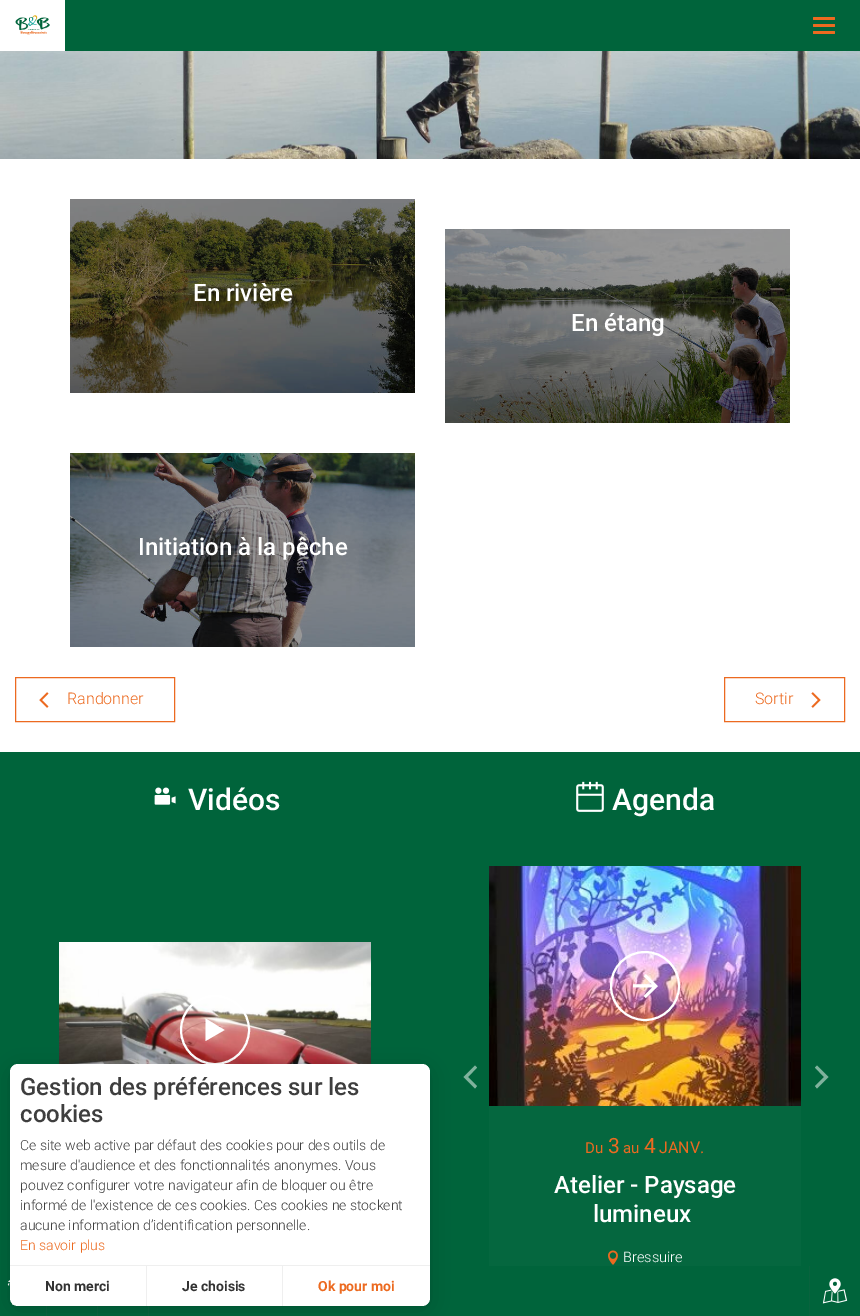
%!PS-Adobe-3.0
%%BoundingBox: 0 0 860 1316
%%LanguageLevel: 3
%%Pages: 1
%%EndComments
%%BeginProlog
/setink { 3 { 255 div 3 1 roll } repeat setrgbcolor } def
/usefont { [ exch dup neg 0 0 3 -1 roll 0 0 ] selectfont } def
/drawtext { setink usefont moveto show } def
/fillbox { setink rectfill } def
/setalpha { dup .setfillconstantalpha .setstrokeconstantalpha } def
/disc { newpath 0 360 arc closepath } def
/rrect { 5 dict begin { /r /h /w /y /x } { exch def } forall
  x r add y moveto x w add y 2 copy h add r arct x w add y h add x 1 index r arct
  x y h add x y r arct x y 2 copy exch w add exch r arct closepath end } def
/softshadow { 12 dict begin { /a /b /q /h /w /y /x } { exch def } forall gsave /was 0 def
  9 -2 -9 { dup b mul 4 div /e exch def 1 sub .425 mul 2.718 exch exp 1 add a .99 .min exch div /now exch def
    1 1 now sub 1 was sub div sub setalpha /was now def
    w h .min e 2 mul add 0 gt { x e sub y e sub w e 2 mul add h e 2 mul add
      q e add b .6 mul add w h .min 2 div e add .min 0 .max rrect fill } if } for grestore end } def
/drawimage { 5 dict begin { /h /w /y /x /name } { exch def } forall
  gsave x y translate w h scale
  w h 8 [w 0 0 h 0 0] name (r) file false 3 colorimage grestore end } def
%%EndProlog
%%BeginSetup
<< /PageSize [860 1316] /PageUsesTransparency true >> setpagedevice
%%EndSetup
%%Page: 1 1
0 .pushpdf14devicefilter
0 1316 translate 1 -1 scale
4 setmiterlimit
0 0 860 1316 255 255 255 fillbox
65 0 795 51 0 100 59 fillbox
(assets/img1.rgb) 15 15 35 20 drawimage
236 106 32 setink
813 17 22 3 1 rrect fill
813 24 22 3 1 rrect fill
813 31 22 3 1 rrect fill
(assets/img2.rgb) 0 51 860 108 drawimage
70 199 345 194 0 0 0 fillbox
(assets/img3.rgb) 70 199 345 194 drawimage
(En rivière) 193 301 /Roboto-Medium 24 255 255 255 drawtext
445 229 345 194 0 0 0 fillbox
(assets/img4.rgb) 445 229 345 194 drawimage
(En étang) 571 331 /Roboto-Medium 24 255 255 255 drawtext
70 453 345 194 0 0 0 fillbox
(assets/img5.rgb) 70 453 345 194 drawimage
(Initiation à la pêche) 138 555 /Roboto-Medium 24 255 255 255 drawtext
236 106 32 setink
15.5 677.5 159 44 rectstroke
(assets/img6.rgb) 39 692 10 16 drawimage
(Randonner) 67 704 /Roboto-Light 16 236 106 32 drawtext
724.5 677.5 120 44 rectstroke
(Sortir) 755 704 /Roboto-Light 16 236 106 32 drawtext
(assets/img7.rgb) 811 692 10 16 drawimage
0 752 430 564 0 100 59 fillbox
(assets/img8.rgb) 7 1280 8 25 drawimage
430 752 430 564 0 100 59 fillbox
809 1266 1 50 9 99 62 fillbox
(assets/img9.rgb) 822 1278 26 26 drawimage
46 1306 1 10 9 99 62 fillbox
97 1306 1 10 9 99 62 fillbox
148 1306 1 10 9 99 62 fillbox
(assets/img10.rgb) 154 787 22 18 drawimage
(Vidéos) 188 810 /Roboto-Medium 30 255 255 255 drawtext
(assets/img11.rgb) 59 942 312 122 drawimage
2 setlinewidth
215 1030 34 disc stroke
205.5 1018.5 moveto 205.5 1041 lineto 224.5 1030 lineto closepath fill
(assets/img12.rgb) 576 781 28 31 drawimage
(Agenda) 612 810 /Roboto-Medium 30 255 255 255 drawtext
128 178 157 setink
477 1067.5 moveto 475 1065.5 lineto 463.5 1077 lineto 475 1088.5 lineto 477 1086 lineto 468 1077 lineto closepath fill
815 1067.5 moveto 817 1065.5 lineto 828.5 1077 lineto 817 1088.5 lineto 815 1086 lineto 824 1077 lineto closepath fill
489 1106 312 160 5 103 63 fillbox
(assets/img13.rgb) 489 866 312 240 drawimage
255 255 255 setink
645 986 34 disc stroke
(assets/img14.rgb) 633 974 25 25 drawimage
(Du) 585 1153 /Roboto-Regular 15 236 106 32 drawtext
(3) 608 1153 /Roboto-Regular 21 236 106 32 drawtext
(au) 623 1153 /Roboto-Regular 15 236 106 32 drawtext
(4) 644 1153 /Roboto-Regular 21 236 106 32 drawtext
(JANV.) 659 1153 /Roboto-Regular 16 236 106 32 drawtext
(Atelier - Paysage) 554 1193 /Roboto-Medium 24 255 255 255 drawtext
(lumineux) 593 1222 /Roboto-Medium 24 255 255 255 drawtext
(assets/img15.rgb) 608 1250 10 15 drawimage
(Bressuire) 623 1262 /Roboto-Light 14.5 255 255 255 drawtext
0 0 0 setink
10 1066 420 242 8 3 0.05 softshadow
10 1068 420 242 8 12 0.15 softshadow
255 255 255 setink
10 1064 420 242 8 rrect fill
(Gestion des préférences sur les) 20 1095 /Roboto-Medium 24 62 62 62 drawtext
(cookies) 20 1122 /Roboto-Medium 24 62 62 62 drawtext
(Ce site web active par défaut des cookies pour des outils de) 20 1150 /Roboto-Light 14 62 62 62 drawtext
(mesure d'audience et des fonctionnalités anonymes. Vous) 20 1170 /Roboto-Light 14 62 62 62 drawtext
(pouvez configurer votre navigateur afin de bloquer ou être) 20 1190 /Roboto-Light 14 62 62 62 drawtext
(informé de l'existence de ces cookies. Ces cookies ne stockent) 20 1210 /Roboto-Light 14 62 62 62 drawtext
(aucune information d’identification personnelle.) 20 1230 /Roboto-Light 14 62 62 62 drawtext
(En savoir plus) 20 1250 /Roboto-Light 14 236 106 32 drawtext
10 1265 420 1 239 239 239 fillbox
146 1266 1 40 239 239 239 fillbox
(Non merci) 45 1291 /Roboto-Bold 14 51 51 51 drawtext
282 1266 1 40 239 239 239 fillbox
(Je choisis) 182 1291 /Roboto-Bold 14 51 51 51 drawtext
(Ok pour moi) 318 1291 /Roboto-Bold 14 236 106 32 drawtext
.poppdf14devicefilter showpage
%%EOF
